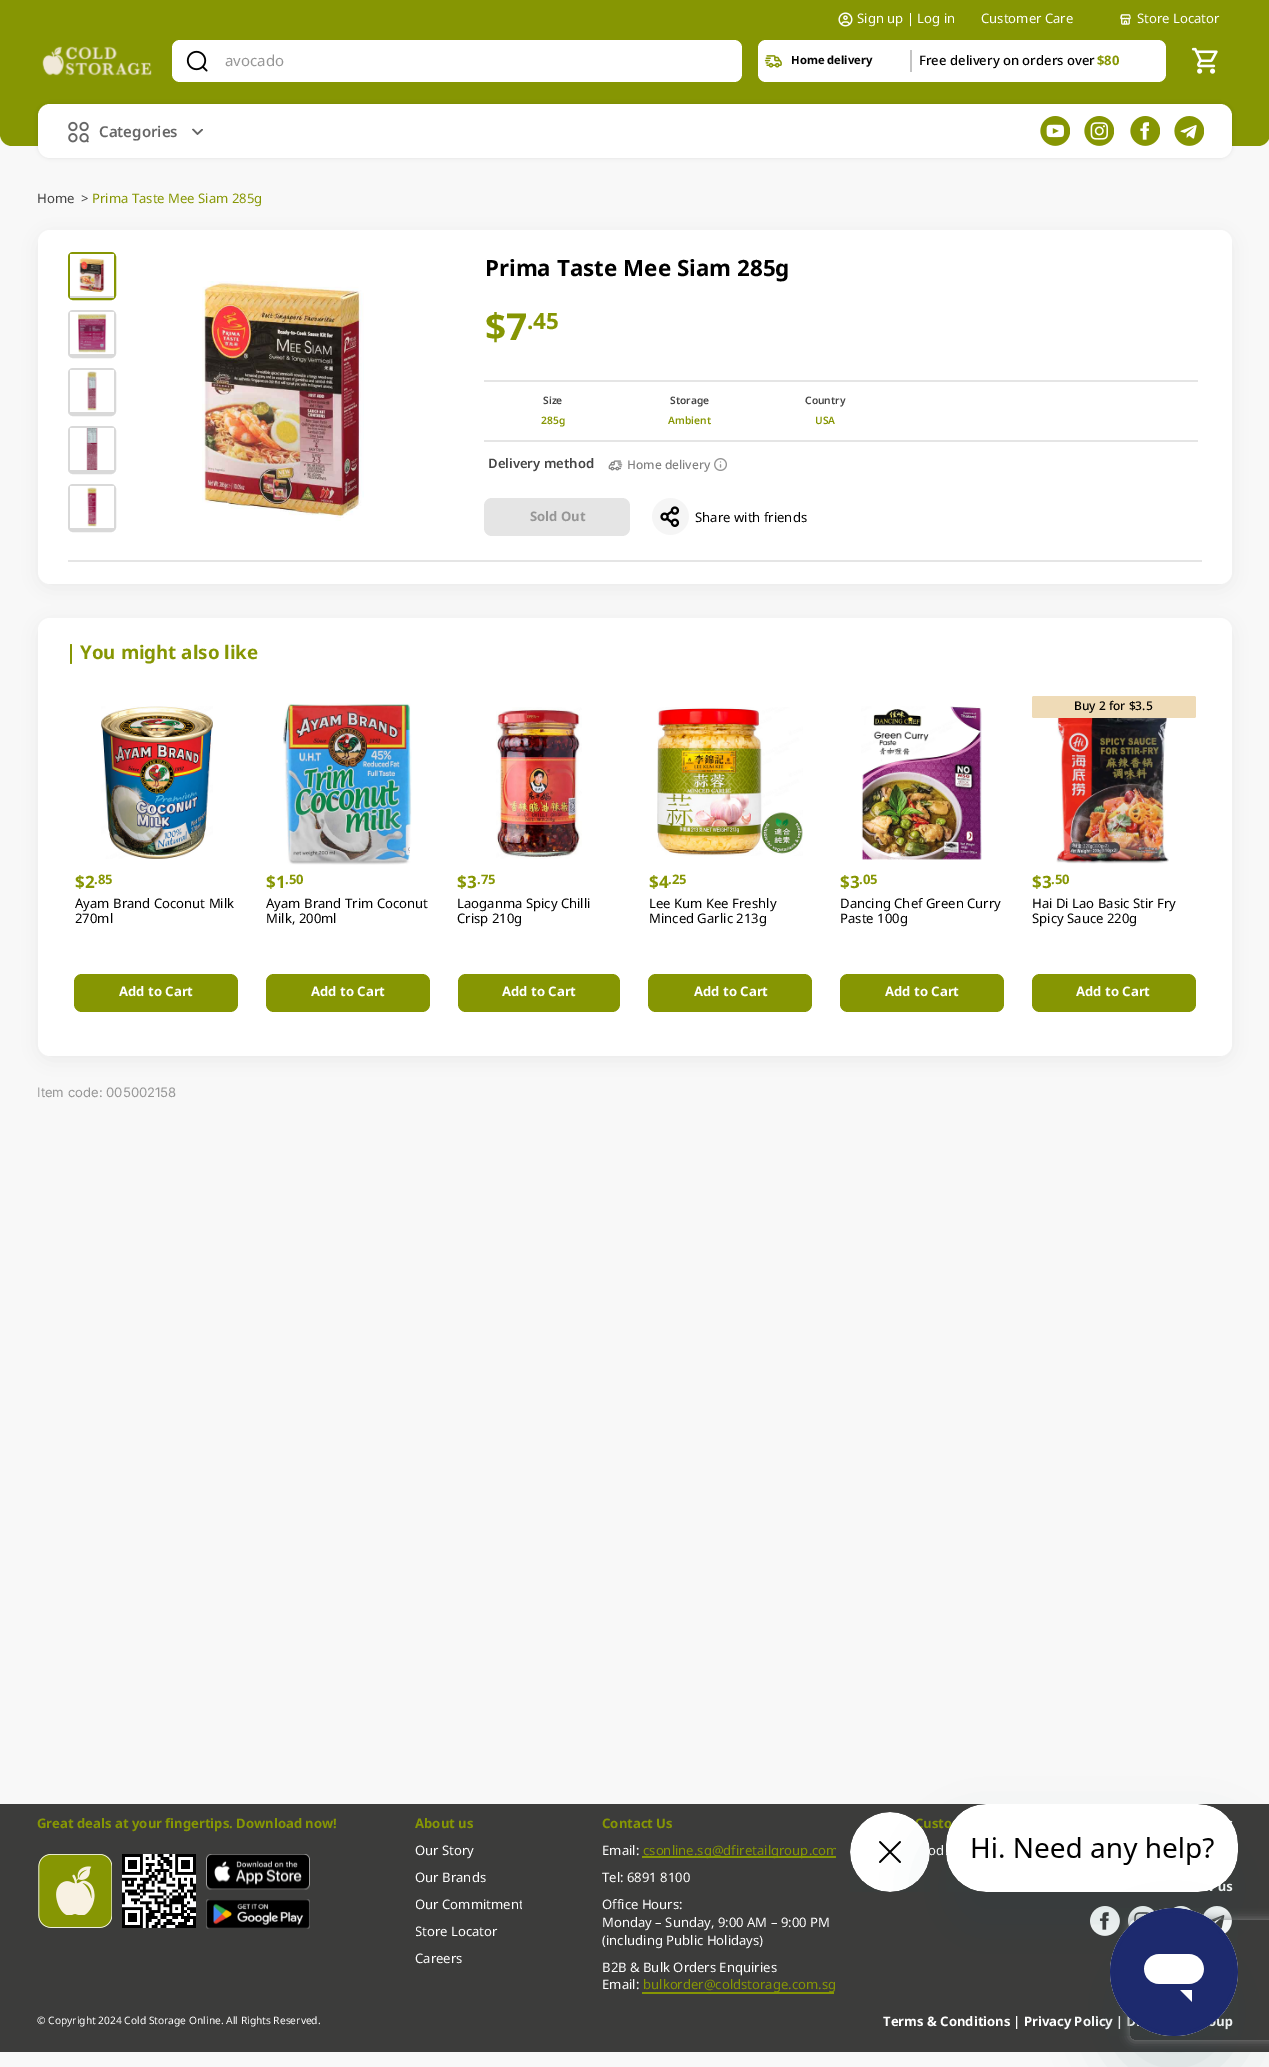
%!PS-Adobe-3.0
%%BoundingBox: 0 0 1269 2067
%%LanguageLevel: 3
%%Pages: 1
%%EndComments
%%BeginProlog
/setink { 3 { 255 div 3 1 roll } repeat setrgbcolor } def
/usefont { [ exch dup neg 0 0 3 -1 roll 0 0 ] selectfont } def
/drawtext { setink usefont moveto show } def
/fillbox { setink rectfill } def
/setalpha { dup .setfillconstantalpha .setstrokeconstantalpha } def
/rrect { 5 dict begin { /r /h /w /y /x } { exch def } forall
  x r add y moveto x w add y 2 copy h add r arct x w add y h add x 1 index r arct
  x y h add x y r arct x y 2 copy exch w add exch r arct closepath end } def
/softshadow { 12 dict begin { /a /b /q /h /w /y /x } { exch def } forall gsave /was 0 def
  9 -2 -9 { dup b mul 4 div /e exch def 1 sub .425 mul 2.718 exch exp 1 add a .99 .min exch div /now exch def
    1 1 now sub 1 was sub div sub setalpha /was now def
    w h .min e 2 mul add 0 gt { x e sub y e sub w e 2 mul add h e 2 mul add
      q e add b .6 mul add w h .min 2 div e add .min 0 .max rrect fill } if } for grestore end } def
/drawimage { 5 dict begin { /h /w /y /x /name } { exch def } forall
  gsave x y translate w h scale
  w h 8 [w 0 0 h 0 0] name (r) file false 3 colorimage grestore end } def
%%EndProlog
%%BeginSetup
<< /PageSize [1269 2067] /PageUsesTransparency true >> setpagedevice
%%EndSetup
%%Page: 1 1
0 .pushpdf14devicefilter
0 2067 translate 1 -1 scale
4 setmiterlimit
0 0 1269 2067 248 248 248 fillbox
134 150 3 setink
0 0 moveto 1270 0 lineto 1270 134 lineto 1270 140.5 1264.5 146 1258 146 curveto 12 146 lineto 5.5 146 0 140.5 0 134 curveto closepath fill
(assets/img1.rgb) 838 12 15 15 drawimage
(Sign up | Log in) 857 23 /NotoSans-Regular 13.1 255 255 255 drawtext
(Customer Care) 981 23 /NotoSans-Regular 13.1 255 255 255 drawtext
(assets/img2.rgb) 1120 14 11 11 drawimage
(Store Locator) 1137 23 /NotoSans-Regular 13.1 255 255 255 drawtext
(assets/img3.rgb) 42 46 110 30 drawimage
172 40 570 42 8 rrect fill
(assets/img4.rgb) 186 50 22 22 drawimage
(avocado) 225 66 /NotoSans-Regular 15 150 150 150 drawtext
255 255 255 setink
758 40 408 42 8 rrect fill
(assets/img5.rgb) 764 55 18 13 drawimage
(Home delivery) 791 64 /NotoSans-Bold 11.25 0 0 0 drawtext
910 50 2 22 196 196 196 fillbox
(Free delivery on orders over) 919 65 /NotoSans-Medium 13.1 0 0 0 drawtext
($80) 1097 65 /NotoSans-Bold 13.1 134 150 3 drawtext
(assets/img6.rgb) 1191 47 27 27 drawimage
0 0 0 setink
38 104 1194 54 12 2 0.1 softshadow
255 255 255 setink
38 104 1194 54 12 rrect fill
(assets/img7.rgb) 68 121 21 22 drawimage
(Categories) 99 137 /NotoSans-SemiBold 15 102 102 102 drawtext
(assets/img8.rgb) 192 128 11 7 drawimage
(assets/img9.rgb) 1040 116 30 30 drawimage
(assets/img10.rgb) 1084 116 30 30 drawimage
(assets/img11.rgb) 1130 116 30 30 drawimage
(assets/img12.rgb) 1174 116 30 30 drawimage
(Home) 37 203 /NotoSans-Regular 13.1 68 68 68 drawtext
(>) 81 203 /NotoSans-Regular 13.1 68 68 68 drawtext
0 0 0 setink
38 234 1194 354 12 9.5 0.05 softshadow
(Prima Taste Mee Siam 285g) 92 203 /NotoSans-Regular 13.1 134 150 3 drawtext
255 255 255 setink
38 230 1194 354 12 rrect fill
68 560 1134 2 229 229 229 fillbox
134 150 3 setink
2 setlinewidth
69 253 46 46 4 rrect stroke
70 296 44 2 217 217 217 fillbox
(assets/img13.rgb) 70 254 44 42 drawimage
69 311 46 46 4 rrect stroke
70 354 44 2 217 217 217 fillbox
(assets/img14.rgb) 70 312 44 42 drawimage
69 369 46 46 4 rrect stroke
70 412 44 2 217 217 217 fillbox
(assets/img15.rgb) 70 370 44 42 drawimage
69 427 46 46 4 rrect stroke
70 470 44 2 217 217 217 fillbox
(assets/img16.rgb) 70 428 44 42 drawimage
69 485 46 46 4 rrect stroke
70 528 44 2 217 217 217 fillbox
(assets/img17.rgb) 70 486 44 42 drawimage
(assets/img18.rgb) 202 281 162 240 drawimage
(Prima Taste Mee Siam 285g) 485 276 /NotoSans-Bold 22.4 0 0 0 drawtext
($7) 485 340 /NotoSans-Bold 37 134 150 3 drawtext
(.45) 527 329 /NotoSans-Bold 22.4 134 150 3 drawtext
484 380 714 2 229 229 229 fillbox
484 440 714 2 229 229 229 fillbox
(Size) 543 404 /NotoSans-SemiBold 10.25 68 68 68 drawtext
(285g) 541 424 /NotoSans-SemiBold 10.25 134 150 3 drawtext
(Storage) 670 404 /NotoSans-SemiBold 10.25 68 68 68 drawtext
(Ambient) 668 424 /NotoSans-SemiBold 10.25 134 150 3 drawtext
(Country) 805 404 /NotoSans-SemiBold 10.25 68 68 68 drawtext
(USA) 815 424 /NotoSans-SemiBold 10.25 134 150 3 drawtext
(Delivery method) 488 468 /NotoSans-SemiBold 13.1 68 68 68 drawtext
(assets/img19.rgb) 608 460 15 11 drawimage
(Home delivery) 627 469 /NotoSans-Medium 12 128 128 128 drawtext
(assets/img20.rgb) 714 458 13 13 drawimage
229 229 229 setink
484 498 146 38 8 rrect fill
(Sold Out) 530 521 /NotoSans-Bold 13.1 150 150 150 drawtext
(assets/img21.rgb) 652 498 37 37 drawimage
(Share with friends) 695 522 /NotoSans-Regular 13.1 0 0 0 drawtext
38 622 1194 438 12 9.5 0.05 softshadow
255 255 255 setink
38 618 1194 438 12 rrect fill
134 150 3 setink
70 644 2 20 1 rrect fill
(You might also like) 80 659 /NotoSans-Bold 18.75 134 150 3 drawtext
(assets/img22.rgb) 101 706 112 153 drawimage
($2) 75 888 /NotoSans-Bold 17 134 150 3 drawtext
(.85) 94 884 /NotoSans-Bold 13.1 134 150 3 drawtext
(Ayam Brand Coconut Milk) 75 908 /NotoSans-Regular 13.1 0 0 0 drawtext
(270ml) 75 923 /NotoSans-Regular 13.1 0 0 0 drawtext
134 150 3 setink
74 974 164 38 8 rrect fill
(Add to Cart) 119 996 /NotoSans-Bold 13.1 255 255 255 drawtext
(assets/img23.rgb) 283 703 129 162 drawimage
($1) 266 888 /NotoSans-Bold 17 134 150 3 drawtext
(.50) 285 884 /NotoSans-Bold 13.1 134 150 3 drawtext
(Ayam Brand Trim Coconut) 266 908 /NotoSans-Regular 13.1 0 0 0 drawtext
(Milk, 200ml) 266 923 /NotoSans-Regular 13.1 0 0 0 drawtext
134 150 3 setink
266 974 164 38 8 rrect fill
(Add to Cart) 311 996 /NotoSans-Bold 13.1 255 255 255 drawtext
(assets/img24.rgb) 496 707 86 152 drawimage
($3) 457 888 /NotoSans-Bold 17 134 150 3 drawtext
(.75) 477 884 /NotoSans-Bold 13.1 134 150 3 drawtext
(Laoganma Spicy Chilli) 457 908 /NotoSans-Regular 13.1 0 0 0 drawtext
(Crisp 210g) 457 923 /NotoSans-Regular 13.1 0 0 0 drawtext
134 150 3 setink
458 974 162 38 8 rrect fill
(Add to Cart) 502 996 /NotoSans-Bold 13.1 255 255 255 drawtext
(assets/img25.rgb) 657 707 146 149 drawimage
($4) 649 888 /NotoSans-Bold 17 134 150 3 drawtext
(.25) 668 884 /NotoSans-Bold 13.1 134 150 3 drawtext
(Lee Kum Kee Freshly) 649 908 /NotoSans-Regular 13.1 0 0 0 drawtext
(Minced Garlic 213g) 649 923 /NotoSans-Regular 13.1 0 0 0 drawtext
134 150 3 setink
648 974 164 38 8 rrect fill
(Add to Cart) 694 996 /NotoSans-Bold 13.1 255 255 255 drawtext
(assets/img26.rgb) 861 706 121 154 drawimage
($3) 840 888 /NotoSans-Bold 17 134 150 3 drawtext
(.05) 859 884 /NotoSans-Bold 13.1 134 150 3 drawtext
(Dancing Chef Green Curry) 840 908 /NotoSans-Regular 13.1 0 0 0 drawtext
(Paste 100g) 840 923 /NotoSans-Regular 13.1 0 0 0 drawtext
134 150 3 setink
840 974 164 38 8 rrect fill
(Add to Cart) 885 996 /NotoSans-Bold 13.1 255 255 255 drawtext
239 219 183 setink
1032 696 164 22 2 rrect fill
(Buy 2 for $3.5) 1074 710 /NotoSans-Medium 12 0 0 0 drawtext
(assets/img27.rgb) 1056 718 113 146 drawimage
($3) 1032 888 /NotoSans-Bold 17 134 150 3 drawtext
(.50) 1051 884 /NotoSans-Bold 13.1 134 150 3 drawtext
(Hai Di Lao Basic Stir Fry) 1032 908 /NotoSans-Regular 13.1 0 0 0 drawtext
(Spicy Sauce 220g) 1032 923 /NotoSans-Regular 13.1 0 0 0 drawtext
134 150 3 setink
1032 974 164 38 8 rrect fill
(Add to Cart) 1076 996 /NotoSans-Bold 13.1 255 255 255 drawtext
(Item code: 005002158) 37 1097 /Inter-Regular 13.1 150 150 150 drawtext
0 1804 1269 248 60 60 59 fillbox
(Great deals at your fingertips. Download now!) 37 1828 /NotoSans-Bold 13.1 134 150 3 drawtext
(assets/img28.rgb) 38 1854 74 74 drawimage
(assets/img29.rgb) 122 1854 74 74 drawimage
(assets/img30.rgb) 206 1854 104 36 drawimage
(assets/img31.rgb) 206 1899 104 30 drawimage
(About us) 415 1828 /NotoSans-Bold 13.1 134 150 3 drawtext
(Our Story) 415 1855 /NotoSans-Regular 13.1 255 255 255 drawtext
(Our Brands) 415 1882 /NotoSans-Regular 13.1 255 255 255 drawtext
gsave
416 1842 106 126 rectclip
(Our Commitment) 415 1909 /NotoSans-Regular 13.1 255 255 255 drawtext
(Store Locator) 415 1936 /NotoSans-Regular 13.1 255 255 255 drawtext
grestore
(Careers) 415 1963 /NotoSans-Regular 13.1 255 255 255 drawtext
(Contact Us) 602 1828 /NotoSans-Bold 13.1 134 150 3 drawtext
(Email:) 602 1855 /NotoSans-Regular 13.1 255 255 255 drawtext
642 1856 194 2 134 150 3 fillbox
gsave
602 1842 234 154 rectclip
(csonline.sg@dfiretailgroup.com) 643 1855 /NotoSans-Regular 13.1 134 150 3 drawtext
grestore
(Tel: 6891 8100) 602 1882 /NotoSans-Regular 13.1 255 255 255 drawtext
(Office Hours:) 602 1909 /NotoSans-Regular 13.1 255 255 255 drawtext
(Monday – Sunday, 9:00 AM – 9:00 PM) 602 1927 /NotoSans-Regular 13.1 255 255 255 drawtext
(\(including Public Holidays\)) 602 1945 /NotoSans-Regular 13.1 255 255 255 drawtext
(B2B & Bulk Orders Enquiries) 602 1972 /NotoSans-Regular 13.1 255 255 255 drawtext
(Email:) 602 1989 /NotoSans-Regular 13.1 255 255 255 drawtext
642 1992 192 2 134 150 3 fillbox
(bulkorder@coldstorage.com.sg) 643 1989 /NotoSans-Regular 13.1 134 150 3 drawtext
(Custo) 915 1828 /NotoSans-Bold 13.1 134 150 3 drawtext
(od) 928 1855 /NotoSans-Regular 13.1 255 255 255 drawtext
(us) 1218 1891 /NotoSans-Bold 13.1 255 255 255 drawtext
(assets/img32.rgb) 1090 1906 30 30 drawimage
(assets/img33.rgb) 1128 1906 26 21 drawimage
(assets/img34.rgb) 1173 1906 19 5 drawimage
(assets/img35.rgb) 1203 1906 29 28 drawimage
(© Copyright 2024 Cold Storage Online. All Rights Reserved.) 37 2024 /NotoSans-Regular 10.25 255 255 255 drawtext
(Terms & Conditions) 883 2026 /NotoSans-Bold 13.1 255 255 255 drawtext
(| Privacy Policy |) 1013 2026 /NotoSans-Bold 13.1 255 255 255 drawtext
(up) 1216 2026 /NotoSans-Bold 13.1 255 255 255 drawtext
(assets/img37.rgb) 850 1812 80 80 drawimage
23 73 77 setink
946 1844 292 88 40 30 0.15 softshadow
(assets/img36.rgb) 946 1804 292 88 drawimage
1110 1948 128 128 64 30 0.15 softshadow
gsave
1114 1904 moveto 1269 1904 lineto 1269 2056 lineto 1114 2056 lineto closepath 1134 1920 moveto 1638 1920 lineto 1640 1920 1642 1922 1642 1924 curveto 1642 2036 lineto 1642 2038 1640 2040 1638 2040 curveto 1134 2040 lineto 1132 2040 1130 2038 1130 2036 curveto 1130 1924 lineto 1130 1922 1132 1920 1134 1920 curveto closepath eoclip newpath
128 128 128 setink
1130 1920 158 120 4 5 1 softshadow
grestore
(assets/img38.rgb) 1110 1908 128 128 drawimage
.poppdf14devicefilter showpage
%%EOF
